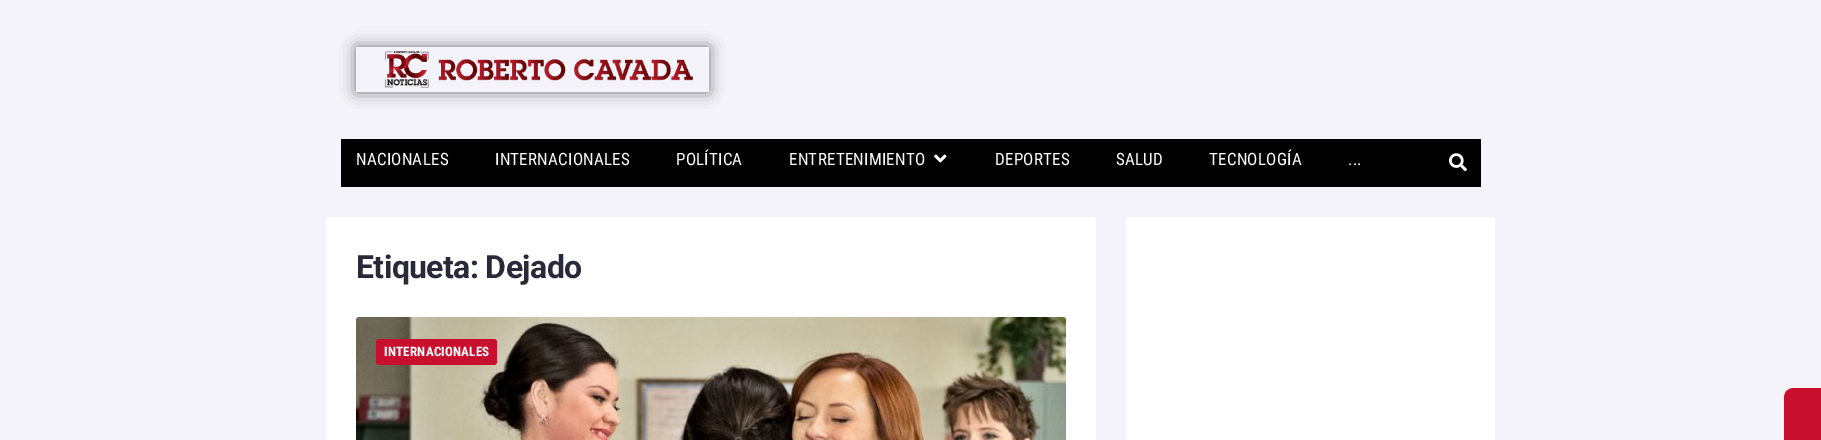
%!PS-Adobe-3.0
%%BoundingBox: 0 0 1821 440
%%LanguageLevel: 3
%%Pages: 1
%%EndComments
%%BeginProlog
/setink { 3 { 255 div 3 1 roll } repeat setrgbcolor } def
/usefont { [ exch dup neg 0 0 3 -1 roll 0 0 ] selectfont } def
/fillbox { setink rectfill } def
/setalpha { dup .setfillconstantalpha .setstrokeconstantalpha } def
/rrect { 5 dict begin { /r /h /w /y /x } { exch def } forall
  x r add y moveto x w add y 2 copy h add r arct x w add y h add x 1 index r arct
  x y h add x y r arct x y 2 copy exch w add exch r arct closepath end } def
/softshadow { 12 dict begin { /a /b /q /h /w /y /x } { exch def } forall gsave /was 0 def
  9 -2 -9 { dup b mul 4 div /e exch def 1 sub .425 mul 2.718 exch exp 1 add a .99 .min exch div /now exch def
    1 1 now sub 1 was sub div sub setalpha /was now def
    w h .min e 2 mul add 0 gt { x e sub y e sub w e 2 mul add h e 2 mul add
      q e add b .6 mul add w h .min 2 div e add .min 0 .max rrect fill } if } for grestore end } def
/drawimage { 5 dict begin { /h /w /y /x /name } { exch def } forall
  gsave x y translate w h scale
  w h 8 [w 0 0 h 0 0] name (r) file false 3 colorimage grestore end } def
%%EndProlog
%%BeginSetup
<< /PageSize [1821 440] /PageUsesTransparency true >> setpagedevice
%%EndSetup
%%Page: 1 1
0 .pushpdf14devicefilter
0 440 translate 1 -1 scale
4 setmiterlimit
0 0 1821 440 243 243 249 fillbox
gsave
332 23 moveto 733 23 lineto 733 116 lineto 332 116 lineto closepath 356 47 moveto 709 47 lineto 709 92 lineto 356 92 lineto closepath eoclip newpath
0 0 0 setink
356 47 353 45 0 7.5 0.5 softshadow
grestore
(assets/img1.rgb) 385 51 308 37 drawimage
341 139 1140 48 0 0 0 fillbox
/RobotoCondensed-Regular 17 usefont
255 255 255 setink
356 165 moveto 0.25 0 (NACIONALES) ashow
495 165 moveto 0.25 0 (INTERNACIONALES) ashow
676 165 moveto 0.25 0 (POLÍTICA) ashow
789 165 moveto 0.25 0 (ENTRETENIMIENTO) ashow
(assets/img2.rgb) 934 154 13 9 drawimage
995 165 moveto 0.25 0 (DEPORTES) ashow
1116 165 moveto 0.25 0 (SALUD) ashow
1209 165 moveto 0.25 0 (TECNOLOGÍA) ashow
1348 165 moveto 0.25 0 (...) ashow
(assets/img3.rgb) 1449 153 18 19 drawimage
326 217 770 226 3 rrect fill
/Roboto-Bold 32 usefont
41 41 58 setink
356 278 moveto -0.6 0 (Etiqueta: Dejado) ashow
(assets/img4.rgb) 356 317 710 123 drawimage
200 16 46 setink
376 339 121 26 3 rrect fill
/RobotoCondensed-Bold 13 usefont
255 255 255 setink
384 356 moveto 0.25 0 (INTERNACIONALES) ashow
1126 217 369 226 3 rrect fill
200 16 46 setink
1784 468 moveto 1784 398 lineto 1784 392 1788 388 1794 388 curveto 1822 388 lineto 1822 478 lineto 1794 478 lineto 1788 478 1784 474 1784 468 curveto closepath fill
.poppdf14devicefilter showpage
%%EOF
